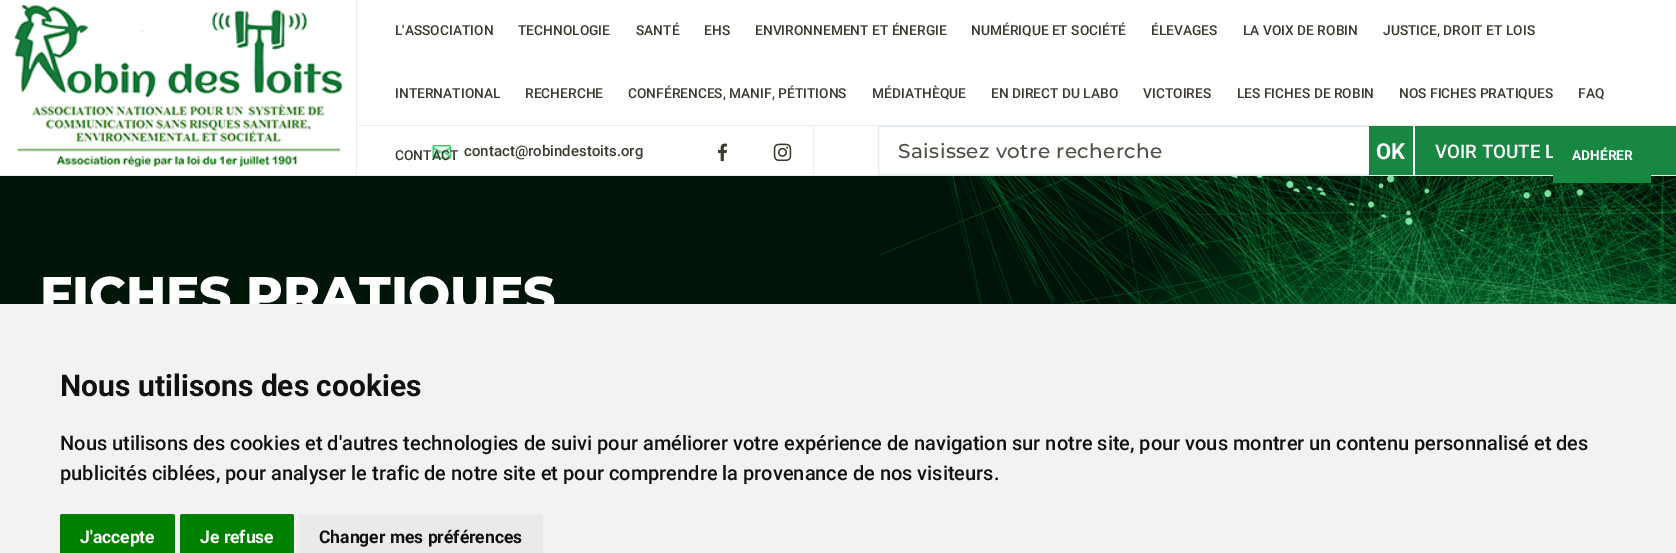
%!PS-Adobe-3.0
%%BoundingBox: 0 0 1676 553
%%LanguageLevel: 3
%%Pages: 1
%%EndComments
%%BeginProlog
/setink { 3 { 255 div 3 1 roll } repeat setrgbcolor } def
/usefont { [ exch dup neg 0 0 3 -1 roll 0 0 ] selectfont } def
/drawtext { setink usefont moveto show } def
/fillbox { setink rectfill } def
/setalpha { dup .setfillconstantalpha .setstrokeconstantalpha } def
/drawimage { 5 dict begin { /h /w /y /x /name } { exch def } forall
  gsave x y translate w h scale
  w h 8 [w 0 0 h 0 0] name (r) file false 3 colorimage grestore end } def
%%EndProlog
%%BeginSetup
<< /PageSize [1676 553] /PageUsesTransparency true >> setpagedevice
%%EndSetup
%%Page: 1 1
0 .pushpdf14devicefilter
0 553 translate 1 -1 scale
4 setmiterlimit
0 0 1676 553 1 21 9 fillbox
0 0 1676 175 255 255 255 fillbox
0 175 1676 1 229 238 236 fillbox
(assets/img1.rgb) 13 4 330 164 drawimage
356 0 1 175 229 238 236 fillbox
(L'ASSOCIATION) 395 35 /Roboto-Medium 13.75 61 59 48 drawtext
(TECHNOLOGIE) 518 35 /Roboto-Medium 13.75 61 59 48 drawtext
(SANTÉ) 636 35 /Roboto-Medium 13.75 61 59 48 drawtext
(EHS) 704 35 /Roboto-Medium 13.75 61 59 48 drawtext
(ENVIRONNEMENT ET ÉNERGIE) 755 35 /Roboto-Medium 13.75 61 59 48 drawtext
(NUMÉRIQUE ET SOCIÉTÉ) 971 35 /Roboto-Medium 13.75 61 59 48 drawtext
(ÉLEVAGES) 1151 35 /Roboto-Medium 13.75 61 59 48 drawtext
(LA VOIX DE ROBIN) 1243 35 /Roboto-Medium 13.75 61 59 48 drawtext
(JUSTICE, DROIT ET LOIS) 1383 35 /Roboto-Medium 13.75 61 59 48 drawtext
(INTERNATIONAL) 395 98 /Roboto-Medium 13.75 61 59 48 drawtext
(RECHERCHE) 525 98 /Roboto-Medium 13.75 61 59 48 drawtext
(CONFÉRENCES, MANIF, PÉTITIONS) 628 98 /Roboto-Medium 13.75 61 59 48 drawtext
(MÉDIATHÈQUE) 872 98 /Roboto-Medium 13.75 61 59 48 drawtext
(EN DIRECT DU LABO) 991 98 /Roboto-Medium 13.75 61 59 48 drawtext
(VICTOIRES) 1143 98 /Roboto-Medium 13.75 61 59 48 drawtext
(LES FICHES DE ROBIN) 1237 98 /Roboto-Medium 13.75 61 59 48 drawtext
(NOS FICHES PRATIQUES) 1399 98 /Roboto-Medium 13.75 61 59 48 drawtext
(FAQ) 1578 98 /Roboto-Medium 13.75 61 59 48 drawtext
(assets/img2.rgb) 432 145 20 14 drawimage
(CONTACT) 395 160 /Roboto-Medium 13.75 61 59 48 drawtext
1415 126 261 49 24 135 66 fillbox
(VOIR TOUTE L) 1435 158 /Roboto-Medium 18.75 255 255 255 drawtext
(assets/img5.rgb) 595 176 1081 128 drawimage
0.05 setalpha
885 176 791 128 0 0 0 fillbox
1 setalpha
1553 156 98 27 24 135 66 fillbox
(ADHÉRER) 1572 160 /Roboto-Bold 13.75 255 255 255 drawtext
358 125 1318 1 229 238 236 fillbox
(contact@robindestoits.org) 464 156 /Roboto-Medium 15 61 59 48 drawtext
813 126 1 49 229 238 236 fillbox
(assets/img3.rgb) 717 143 11 19 drawimage
(assets/img4.rgb) 773 143 19 19 drawimage
878.5 126.5 534 48 rectstroke
/Montserrat-Medium 20 usefont
80 79 69 setink
898 158 moveto 0.4 0 (Saisissez votre recherche) ashow
1369 126 44 49 24 135 66 fillbox
(OK) 1376 159 /Roboto-Bold 22 255 255 255 drawtext
(FICHES PRATIQUES) 40 312 /Montserrat-ExtraBold 50 255 255 255 drawtext
0 304 1676 249 242 242 242 fillbox
(Nous utilisons des cookies) 60 396 /Roboto-Bold 30 17 17 17 drawtext
(Nous utilisons des cookies et d'autres technologies de suivi pour améliorer votre expérience de navigation sur notre site, pour vous montrer un contenu personnalisé et des) 60 450 /Roboto-Medium 20 17 17 17 drawtext
(publicités ciblées, pour analyser le trafic de notre site et pour comprendre la provenance de nos visiteurs.) 60 480 /Roboto-Medium 20 17 17 17 drawtext
0 128 0 setink
62.5 514 moveto 172.5 514 lineto 174 514 175 515 175 516.5 curveto 175 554 lineto 60 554 lineto 60 516.5 lineto 60 515 61 514 62.5 514 curveto closepath fill
(J'accepte) 80 543 /Roboto-Bold 17.5 255 255 255 drawtext
0 128 0 setink
182.5 514 moveto 291.5 514 lineto 293 514 294 515 294 516.5 curveto 294 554 lineto 180 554 lineto 180 516.5 lineto 180 515 181 514 182.5 514 curveto closepath fill
(Je refuse) 200 543 /Roboto-Bold 17.5 255 255 255 drawtext
234 234 234 setink
301.5 514 moveto 540.5 514 lineto 542 514 543 515 543 516.5 curveto 543 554 lineto 299 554 lineto 299 516.5 lineto 299 515 300 514 301.5 514 curveto closepath fill
(Changer mes préférences) 319 543 /Roboto-Bold 17.5 17 17 17 drawtext
.poppdf14devicefilter showpage
%%EOF
